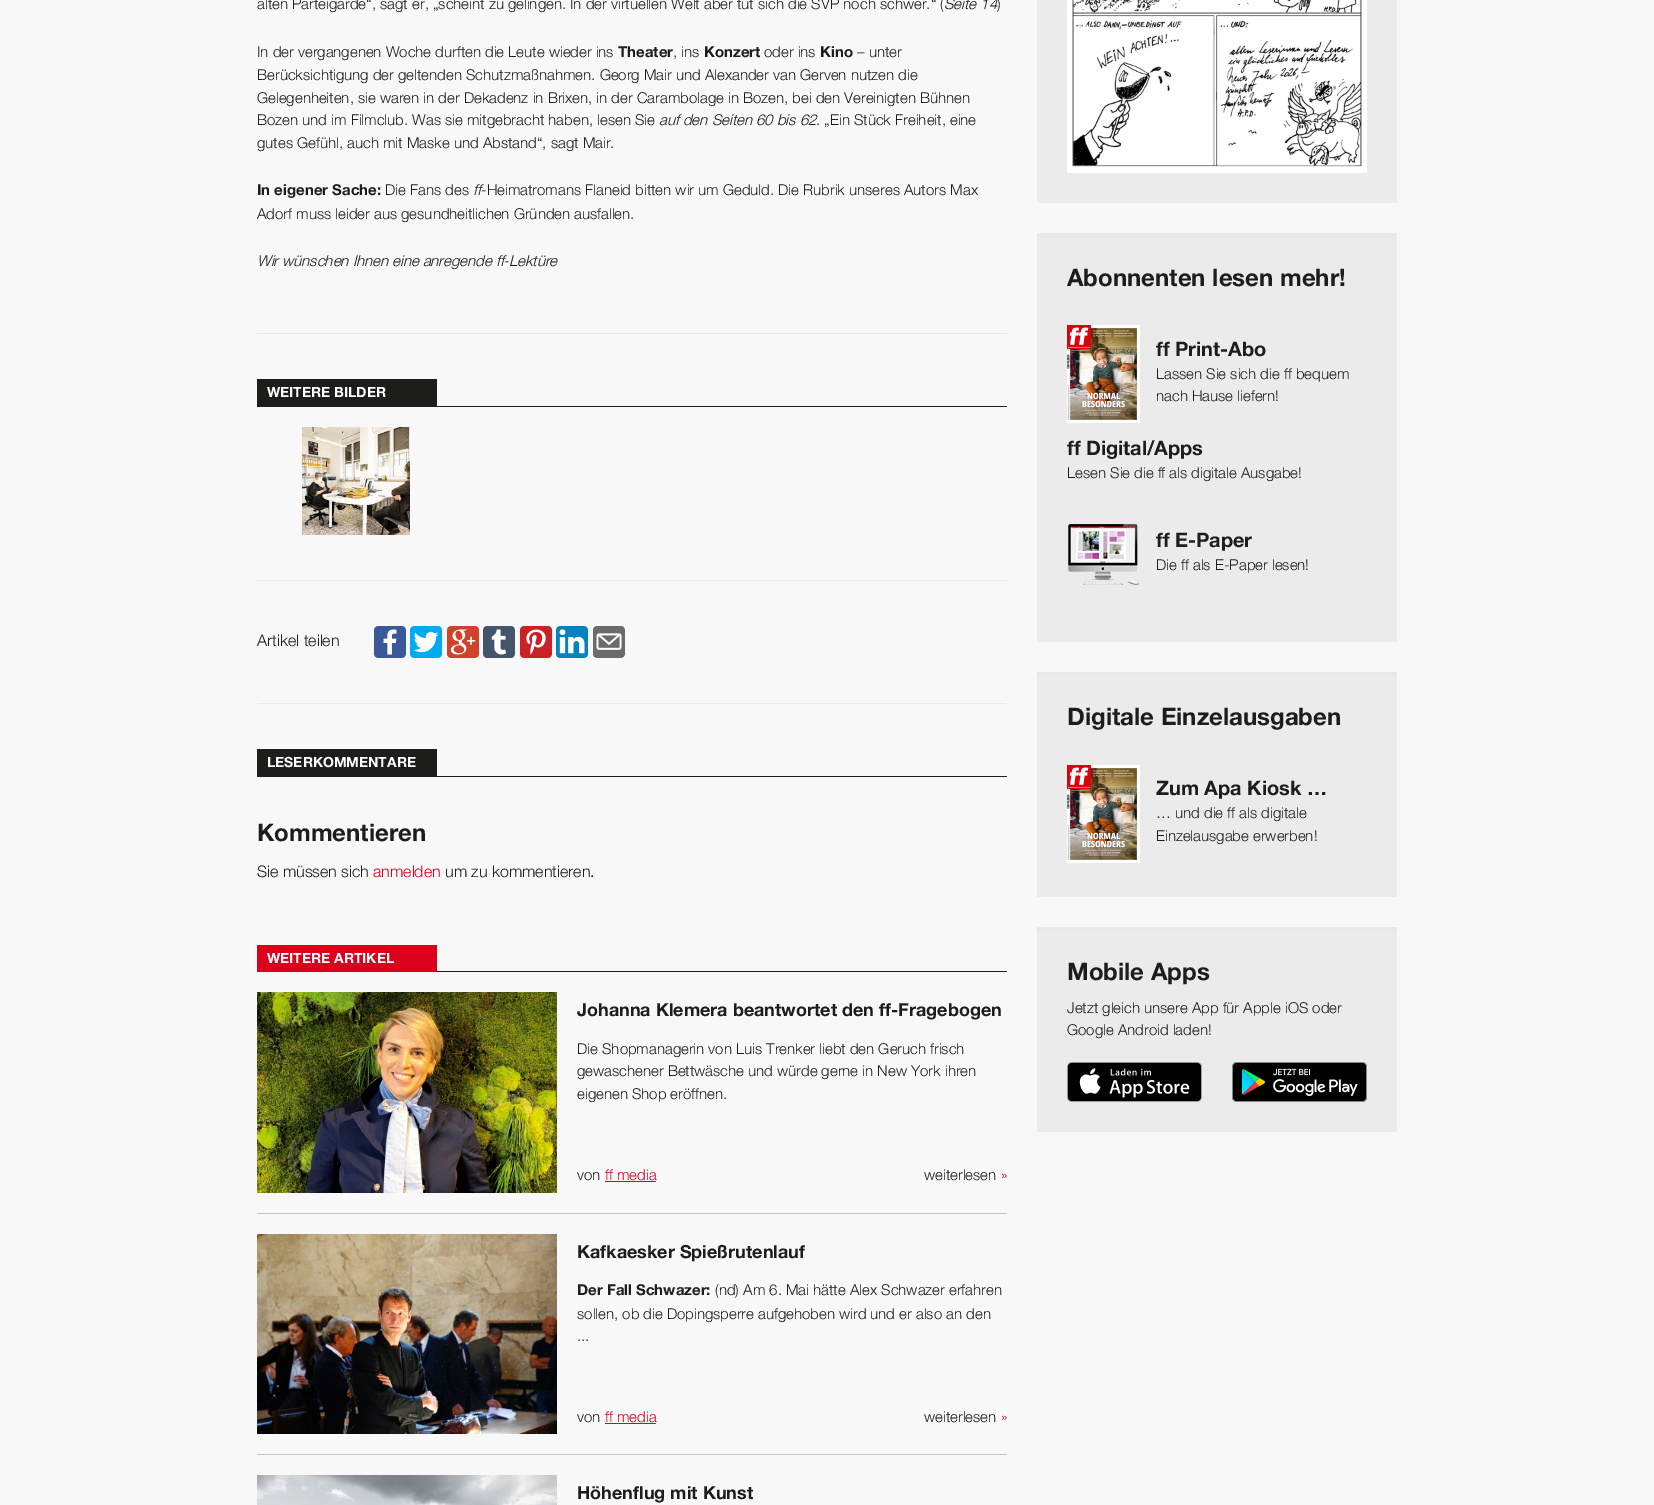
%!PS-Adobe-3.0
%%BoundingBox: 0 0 1654 1505
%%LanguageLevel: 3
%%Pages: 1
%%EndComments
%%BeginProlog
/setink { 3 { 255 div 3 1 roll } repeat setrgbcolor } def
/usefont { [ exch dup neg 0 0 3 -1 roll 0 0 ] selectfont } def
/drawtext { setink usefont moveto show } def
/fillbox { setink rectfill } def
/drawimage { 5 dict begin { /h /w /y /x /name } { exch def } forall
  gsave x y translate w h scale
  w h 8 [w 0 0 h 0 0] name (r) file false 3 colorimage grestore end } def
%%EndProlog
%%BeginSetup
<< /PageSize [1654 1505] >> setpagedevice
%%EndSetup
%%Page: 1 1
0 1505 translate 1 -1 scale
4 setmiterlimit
0 0 1654 1505 248 248 248 fillbox
257 333 750 1 232 232 232 fillbox
(alten Parteigarde“, sagt er, „scheint zu gelingen. In der virtuellen Welt aber tut sich die SVP noch schwer.“ \() 257 9 /HelveticaNeue-Light 15 29 29 27 drawtext
(Seite 14) 944 9 /HelveticaNeue-LightItalic 15 29 29 27 drawtext
(\)) 997 9 /HelveticaNeue-Light 15 29 29 27 drawtext
(In der vergangenen Woche durften die Leute wieder ins) 257 57 /HelveticaNeue-Light 15 29 29 27 drawtext
(Theater) 618 57 /HelveticaNeue-Bold 15 29 29 27 drawtext
(, ins) 673 57 /HelveticaNeue-Light 15 29 29 27 drawtext
(Konzert) 704 57 /HelveticaNeue-Bold 15 29 29 27 drawtext
(oder ins) 764 57 /HelveticaNeue-Light 15 29 29 27 drawtext
(Kino) 820 57 /HelveticaNeue-Bold 15 29 29 27 drawtext
(– unter) 857 57 /HelveticaNeue-Light 15 29 29 27 drawtext
(Berücksichtigung der geltenden Schutzmaßnahmen. Georg Mair und Alexander van Gerven nutzen die) 257 80 /HelveticaNeue-Light 15 29 29 27 drawtext
(Gelegenheiten, sie waren in der Dekadenz in Brixen, in der Carambolage in Bozen, bei den Vereinigten Bühnen) 257 103 /HelveticaNeue-Light 15 29 29 27 drawtext
(Bozen und im Filmclub. Was sie mitgebracht haben, lesen Sie) 257 125 /HelveticaNeue-Light 15 29 29 27 drawtext
(auf den Seiten 60 bis 62) 659 125 /HelveticaNeue-LightItalic 15 29 29 27 drawtext
(. „Ein Stück Freiheit, eine) 816 125 /HelveticaNeue-Light 15 29 29 27 drawtext
(gutes Gefühl, auch mit Maske und Abstand“, sagt Mair.) 257 148 /HelveticaNeue-Light 15 29 29 27 drawtext
(In eigener Sache:) 257 195 /HelveticaNeue-Bold 15 29 29 27 drawtext
(Die Fans des) 385 195 /HelveticaNeue-Light 15 29 29 27 drawtext
(ff) 473 195 /HelveticaNeue-LightItalic 15 29 29 27 drawtext
(-Heimatromans Flaneid bitten wir um Geduld. Die Rubrik unseres Autors Max) 481 195 /HelveticaNeue-Light 15 29 29 27 drawtext
(Adorf muss leider aus gesundheitlichen Gründen ausfallen.) 257 219 /HelveticaNeue-Light 15 29 29 27 drawtext
(Wir wünschen Ihnen eine anregende ff-Lektüre) 257 266 /HelveticaNeue-LightItalic 15 29 29 27 drawtext
257 580 750 1 232 232 232 fillbox
437 406 570 1 29 29 27 fillbox
257 379 180 28 29 29 27 fillbox
(WEITERE BILDER) 267 397 /HelveticaNeue-Bold 14 255 255 255 drawtext
(assets/img1.rgb) 302 427 108 108 drawimage
257 703 750 1 232 232 232 fillbox
(Artikel teilen) 257 646 /HelveticaNeue-Light 16 29 29 27 drawtext
(assets/img2.rgb) 374 626 32 32 drawimage
(assets/img3.rgb) 410 626 32 32 drawimage
(assets/img4.rgb) 447 626 32 32 drawimage
(assets/img5.rgb) 483 626 32 32 drawimage
(assets/img6.rgb) 520 626 32 32 drawimage
(assets/img7.rgb) 556 626 32 32 drawimage
(assets/img8.rgb) 593 626 32 32 drawimage
437 776 570 1 29 29 27 fillbox
257 749 180 28 29 29 27 fillbox
(LESERKOMMENTARE) 267 767 /HelveticaNeue-Bold 14 255 255 255 drawtext
(Kommentieren) 257 841 /HelveticaNeue-Bold 24 29 29 27 drawtext
(Sie müssen sich) 257 877 /HelveticaNeue-Light 16 29 29 27 drawtext
(anmelden) 373 877 /HelveticaNeue-Light 16 219 0 28 drawtext
(um zu kommentieren.) 445 877 /HelveticaNeue-Light 16 29 29 27 drawtext
437 971 570 1 29 29 27 fillbox
257 945 180 27 219 0 28 fillbox
(WEITERE ARTIKEL) 267 963 /HelveticaNeue-Bold 14 255 255 255 drawtext
(assets/img9.rgb) 257 992 300 201 drawimage
(Johanna Klemera beantwortet den ff-Fragebogen) 577 1016 /HelveticaNeue-Bold 18 29 29 27 drawtext
(Die Shopmanagerin von Luis Trenker liebt den Geruch frisch) 577 1054 /HelveticaNeue-Light 15 29 29 27 drawtext
(gewaschener Bettwäsche und würde gerne in New York ihren) 577 1076 /HelveticaNeue-Light 15 29 29 27 drawtext
(eigenen Shop eröffnen.) 577 1099 /HelveticaNeue-Light 15 29 29 27 drawtext
(von) 577 1180 /HelveticaNeue-Light 15 29 29 27 drawtext
(ff media) 605 1180 /HelveticaNeue-Light 15 219 0 28 drawtext
605 1181 51 1 219 0 28 fillbox
(weiterlesen) 924 1180 /HelveticaNeue-Light 15 29 29 27 drawtext
(») 1001 1180 /HelveticaNeue-Light 15 219 0 28 drawtext
257 1213 750 1 198 198 197 fillbox
(assets/img10.rgb) 257 1234 300 200 drawimage
(Kafkaesker Spießrutenlauf) 577 1258 /HelveticaNeue-Bold 18 29 29 27 drawtext
(Der Fall Schwazer:) 577 1295 /HelveticaNeue-Bold 15 29 29 27 drawtext
(\(nd\) Am 6. Mai hätte Alex Schwazer erfahren) 715 1295 /HelveticaNeue-Light 15 29 29 27 drawtext
(sollen, ob die Dopingsperre aufgehoben wird und er also an den) 577 1319 /HelveticaNeue-Light 15 29 29 27 drawtext
(...) 577 1341 /HelveticaNeue-Light 15 29 29 27 drawtext
(von) 577 1422 /HelveticaNeue-Light 15 29 29 27 drawtext
(ff media) 605 1422 /HelveticaNeue-Light 15 219 0 28 drawtext
605 1423 51 1 219 0 28 fillbox
(weiterlesen) 924 1422 /HelveticaNeue-Light 15 29 29 27 drawtext
(») 1001 1422 /HelveticaNeue-Light 15 219 0 28 drawtext
257 1454 750 1 198 198 197 fillbox
(assets/img11.rgb) 257 1475 300 30 drawimage
(Höhenflug mit Kunst) 577 1499 /HelveticaNeue-Bold 18 29 29 27 drawtext
1037 0 360 203 235 235 235 fillbox
(assets/img12.rgb) 1067 0 300 173 drawimage
1037 237 360 405 235 235 235 fillbox
1037 233 360 4 232 232 232 fillbox
(Abonnenten lesen mehr!) 1067 286 /HelveticaNeue-Bold 24 29 29 27 drawtext
(assets/img13.rgb) 1067 325 73 98 drawimage
(ff Print-Abo) 1156 356 /HelveticaNeue-Bold 20 29 29 27 drawtext
(Lassen Sie sich die ff bequem) 1156 379 /HelveticaNeue-Light 15 29 29 27 drawtext
(nach Hause liefern!) 1156 401 /HelveticaNeue-Light 15 29 29 27 drawtext
(ff Digital/Apps) 1067 455 /HelveticaNeue-Bold 20 29 29 27 drawtext
(Lesen Sie die ff als digitale Ausgabe!) 1067 478 /HelveticaNeue-Light 15 29 29 27 drawtext
(assets/img14.rgb) 1068 524 71 61 drawimage
(ff E-Paper) 1156 547 /HelveticaNeue-Bold 20 29 29 27 drawtext
(Die ff als E-Paper lesen!) 1156 570 /HelveticaNeue-Light 15 29 29 27 drawtext
1037 676 360 221 235 235 235 fillbox
1037 672 360 4 232 232 232 fillbox
(Digitale Einzelausgaben) 1067 725 /HelveticaNeue-Bold 24 29 29 27 drawtext
(assets/img13.rgb) 1067 765 73 98 drawimage
(Zum Apa Kiosk …) 1156 795 /HelveticaNeue-Bold 20 29 29 27 drawtext
(… und die ff als digitale) 1156 818 /HelveticaNeue-Light 15 29 29 27 drawtext
(Einzelausgabe erwerben!) 1156 841 /HelveticaNeue-Light 15 29 29 27 drawtext
1037 931 360 201 235 235 235 fillbox
1037 927 360 4 232 232 232 fillbox
(Mobile Apps) 1067 980 /HelveticaNeue-Bold 24 29 29 27 drawtext
(Jetzt gleich unsere App für Apple iOS oder) 1067 1013 /HelveticaNeue-Light 15 29 29 27 drawtext
(Google Android laden!) 1067 1035 /HelveticaNeue-Light 15 29 29 27 drawtext
(assets/img15.rgb) 1067 1062 135 40 drawimage
(assets/img16.rgb) 1232 1062 135 40 drawimage
showpage
%%EOF
